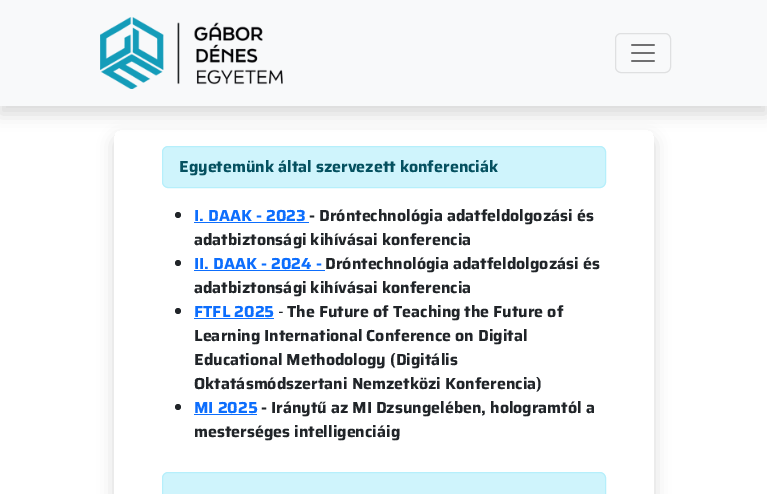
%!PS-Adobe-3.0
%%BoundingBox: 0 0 767 494
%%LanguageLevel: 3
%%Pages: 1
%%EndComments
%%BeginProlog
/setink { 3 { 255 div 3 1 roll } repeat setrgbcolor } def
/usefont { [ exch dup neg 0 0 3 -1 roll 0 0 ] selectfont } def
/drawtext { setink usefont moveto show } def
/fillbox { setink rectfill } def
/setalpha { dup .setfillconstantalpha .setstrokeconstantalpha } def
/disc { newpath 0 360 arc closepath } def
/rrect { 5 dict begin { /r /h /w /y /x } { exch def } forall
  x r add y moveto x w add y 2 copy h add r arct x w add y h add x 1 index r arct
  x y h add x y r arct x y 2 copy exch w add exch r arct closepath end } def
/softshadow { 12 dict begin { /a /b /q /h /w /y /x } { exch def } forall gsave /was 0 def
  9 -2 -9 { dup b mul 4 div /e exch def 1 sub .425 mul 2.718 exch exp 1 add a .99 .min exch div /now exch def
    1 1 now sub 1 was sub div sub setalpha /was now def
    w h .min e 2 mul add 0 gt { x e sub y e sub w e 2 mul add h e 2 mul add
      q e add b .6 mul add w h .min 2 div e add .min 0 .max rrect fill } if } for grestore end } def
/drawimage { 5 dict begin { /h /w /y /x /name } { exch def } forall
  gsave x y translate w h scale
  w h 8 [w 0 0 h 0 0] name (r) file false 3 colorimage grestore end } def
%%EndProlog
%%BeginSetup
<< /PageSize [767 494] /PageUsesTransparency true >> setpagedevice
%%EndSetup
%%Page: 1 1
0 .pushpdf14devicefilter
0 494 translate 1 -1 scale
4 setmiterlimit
0 0 767 494 255 255 255 fillbox
0 0 0 setink
0 8 767 106 0 8 0.15 softshadow
0 0 767 106 248 249 250 fillbox
(assets/img1.rgb) 100 17 183 72 drawimage
223 224 225 setink
615.5 33.5 55 39 5.5 rrect stroke
(assets/img2.rgb) 631 44 24 18 drawimage
gsave
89 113 moveto 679 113 lineto 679 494 lineto 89 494 lineto closepath 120 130 moveto 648 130 lineto 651.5 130 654 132.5 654 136 curveto 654 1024 lineto 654 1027.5 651.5 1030 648 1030 curveto 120 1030 lineto 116.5 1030 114 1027.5 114 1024 curveto 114 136 lineto 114 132.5 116.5 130 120 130 curveto closepath eoclip newpath
0 0 0 setink
114 138 540 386 6 8 0.15 softshadow
grestore
207 244 252 setink
162.5 146.5 443 41 5.5 rrect gsave fill grestore
182 239 251 setink
stroke
(Egyetemünk által szervezett konferenciák) 179 172 /Saira-Bold 16 5 81 96 drawtext
33 37 41 setink
178 215 3 disc fill
(I. DAAK - 2023) 194 221 /Saira-Bold 16 13 110 253 drawtext
194 222 115 1 13 110 253 fillbox
(- Dróntechnológia adatfeldolgozási és) 309 221 /Saira-Bold 16 33 37 41 drawtext
(adatbiztonsági kihívásai konferencia) 194 245 /Saira-Bold 16 33 37 41 drawtext
178 263 3 disc fill
(II. DAAK - 2024 -) 194 269 /Saira-Bold 16 13 110 253 drawtext
194 270 131 1 13 110 253 fillbox
(Dróntechnológia adatfeldolgozási és) 325 269 /Saira-Bold 16 33 37 41 drawtext
(adatbiztonsági kihívásai konferencia) 194 293 /Saira-Bold 16 33 37 41 drawtext
178 311 3 disc fill
(FTFL 2025) 194 317 /Saira-Bold 16 13 110 253 drawtext
194 318 80 1 13 110 253 fillbox
(-) 278 317 /Saira-Regular 16 33 37 41 drawtext
(The Future of Teaching the Future of) 287 317 /Saira-Bold 16 33 37 41 drawtext
(Learning International Conference on Digital) 194 341 /Saira-Bold 16 33 37 41 drawtext
(Educational Methodology \(Digitális) 194 365 /Saira-Bold 16 33 37 41 drawtext
(Oktatásmódszertani Nemzetközi Konferencia\)) 194 389 /Saira-Bold 16 33 37 41 drawtext
178 407 3 disc fill
(MI 2025) 194 413 /Saira-Bold 16 13 110 253 drawtext
194 414 63 1 13 110 253 fillbox
(- Iránytű az MI Dzsungelében, hologramtól a) 261 413 /Saira-Bold 16 33 37 41 drawtext
(mesterséges intelligenciáig) 194 437 /Saira-Bold 16 33 37 41 drawtext
207 244 252 setink
162.5 472.5 443 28 5.5 rrect gsave fill grestore
182 239 251 setink
stroke
.poppdf14devicefilter showpage
%%EOF
